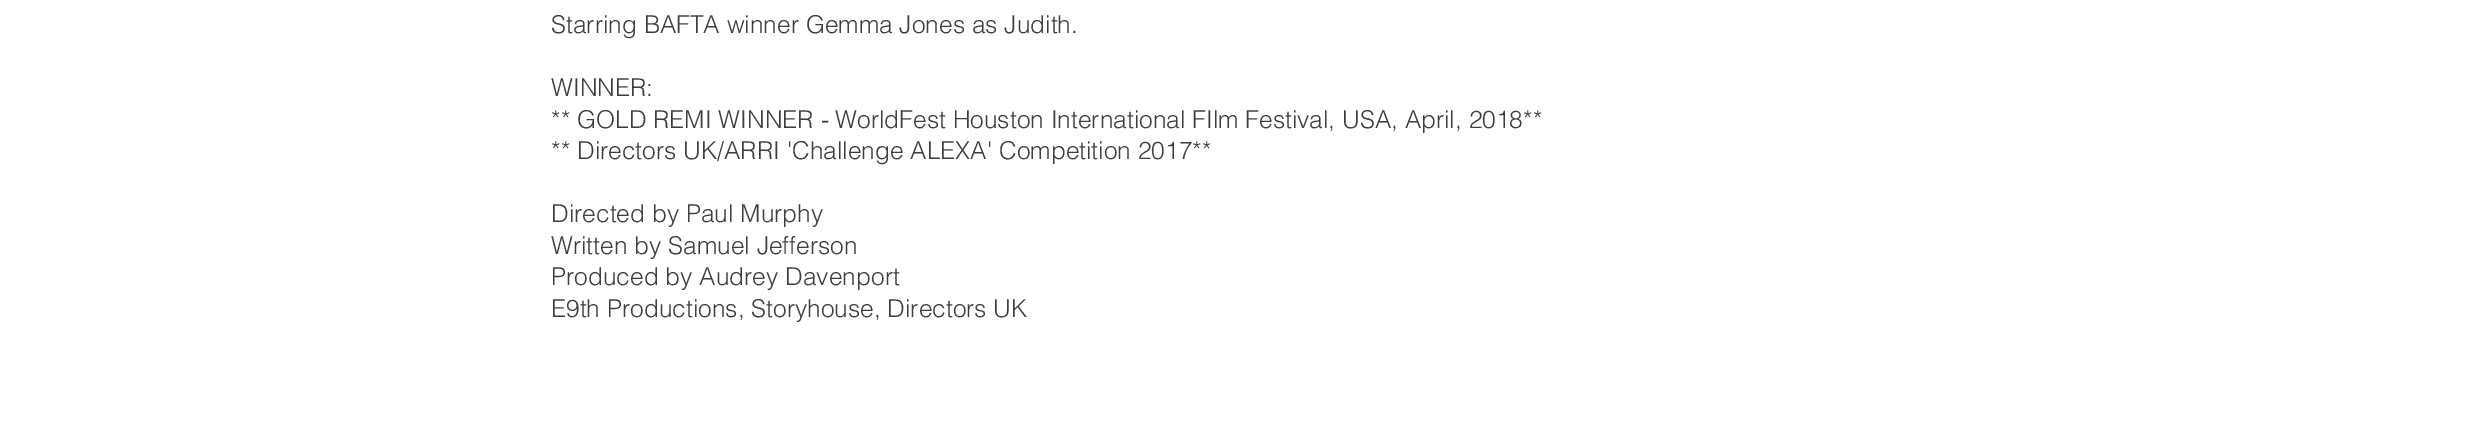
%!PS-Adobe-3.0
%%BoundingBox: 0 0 2491 428
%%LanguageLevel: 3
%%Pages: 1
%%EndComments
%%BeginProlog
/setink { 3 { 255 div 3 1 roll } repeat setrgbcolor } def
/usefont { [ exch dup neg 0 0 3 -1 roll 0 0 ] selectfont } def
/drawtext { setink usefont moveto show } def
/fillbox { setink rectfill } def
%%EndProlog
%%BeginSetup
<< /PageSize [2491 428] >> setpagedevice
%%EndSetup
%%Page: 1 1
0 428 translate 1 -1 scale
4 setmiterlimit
0 0 2491 428 255 255 255 fillbox
(Starring BAFTA winner Gemma Jones as Judith.) 551 33 /helvetica-Light 24.5 62 62 62 drawtext
(WINNER:) 551 96 /helvetica-Light 24.5 62 62 62 drawtext
(** GOLD REMI WINNER - WorldFest Houston International FIlm Festival, USA, April, 2018**) 551 128 /helvetica-Light 24.5 62 62 62 drawtext
(** Directors UK/ARRI 'Challenge ALEXA' Competition 2017**) 551 159 /helvetica-Light 24.5 62 62 62 drawtext
(Directed by Paul Murphy) 551 222 /helvetica-Light 24.5 62 62 62 drawtext
(Written by Samuel Jefferson) 551 254 /helvetica-Light 24.5 62 62 62 drawtext
(Produced by Audrey Davenport) 551 285 /helvetica-Light 24.5 62 62 62 drawtext
(E9th Productions, Storyhouse, Directors UK) 551 317 /helvetica-Light 24.5 62 62 62 drawtext
showpage
%%EOF
